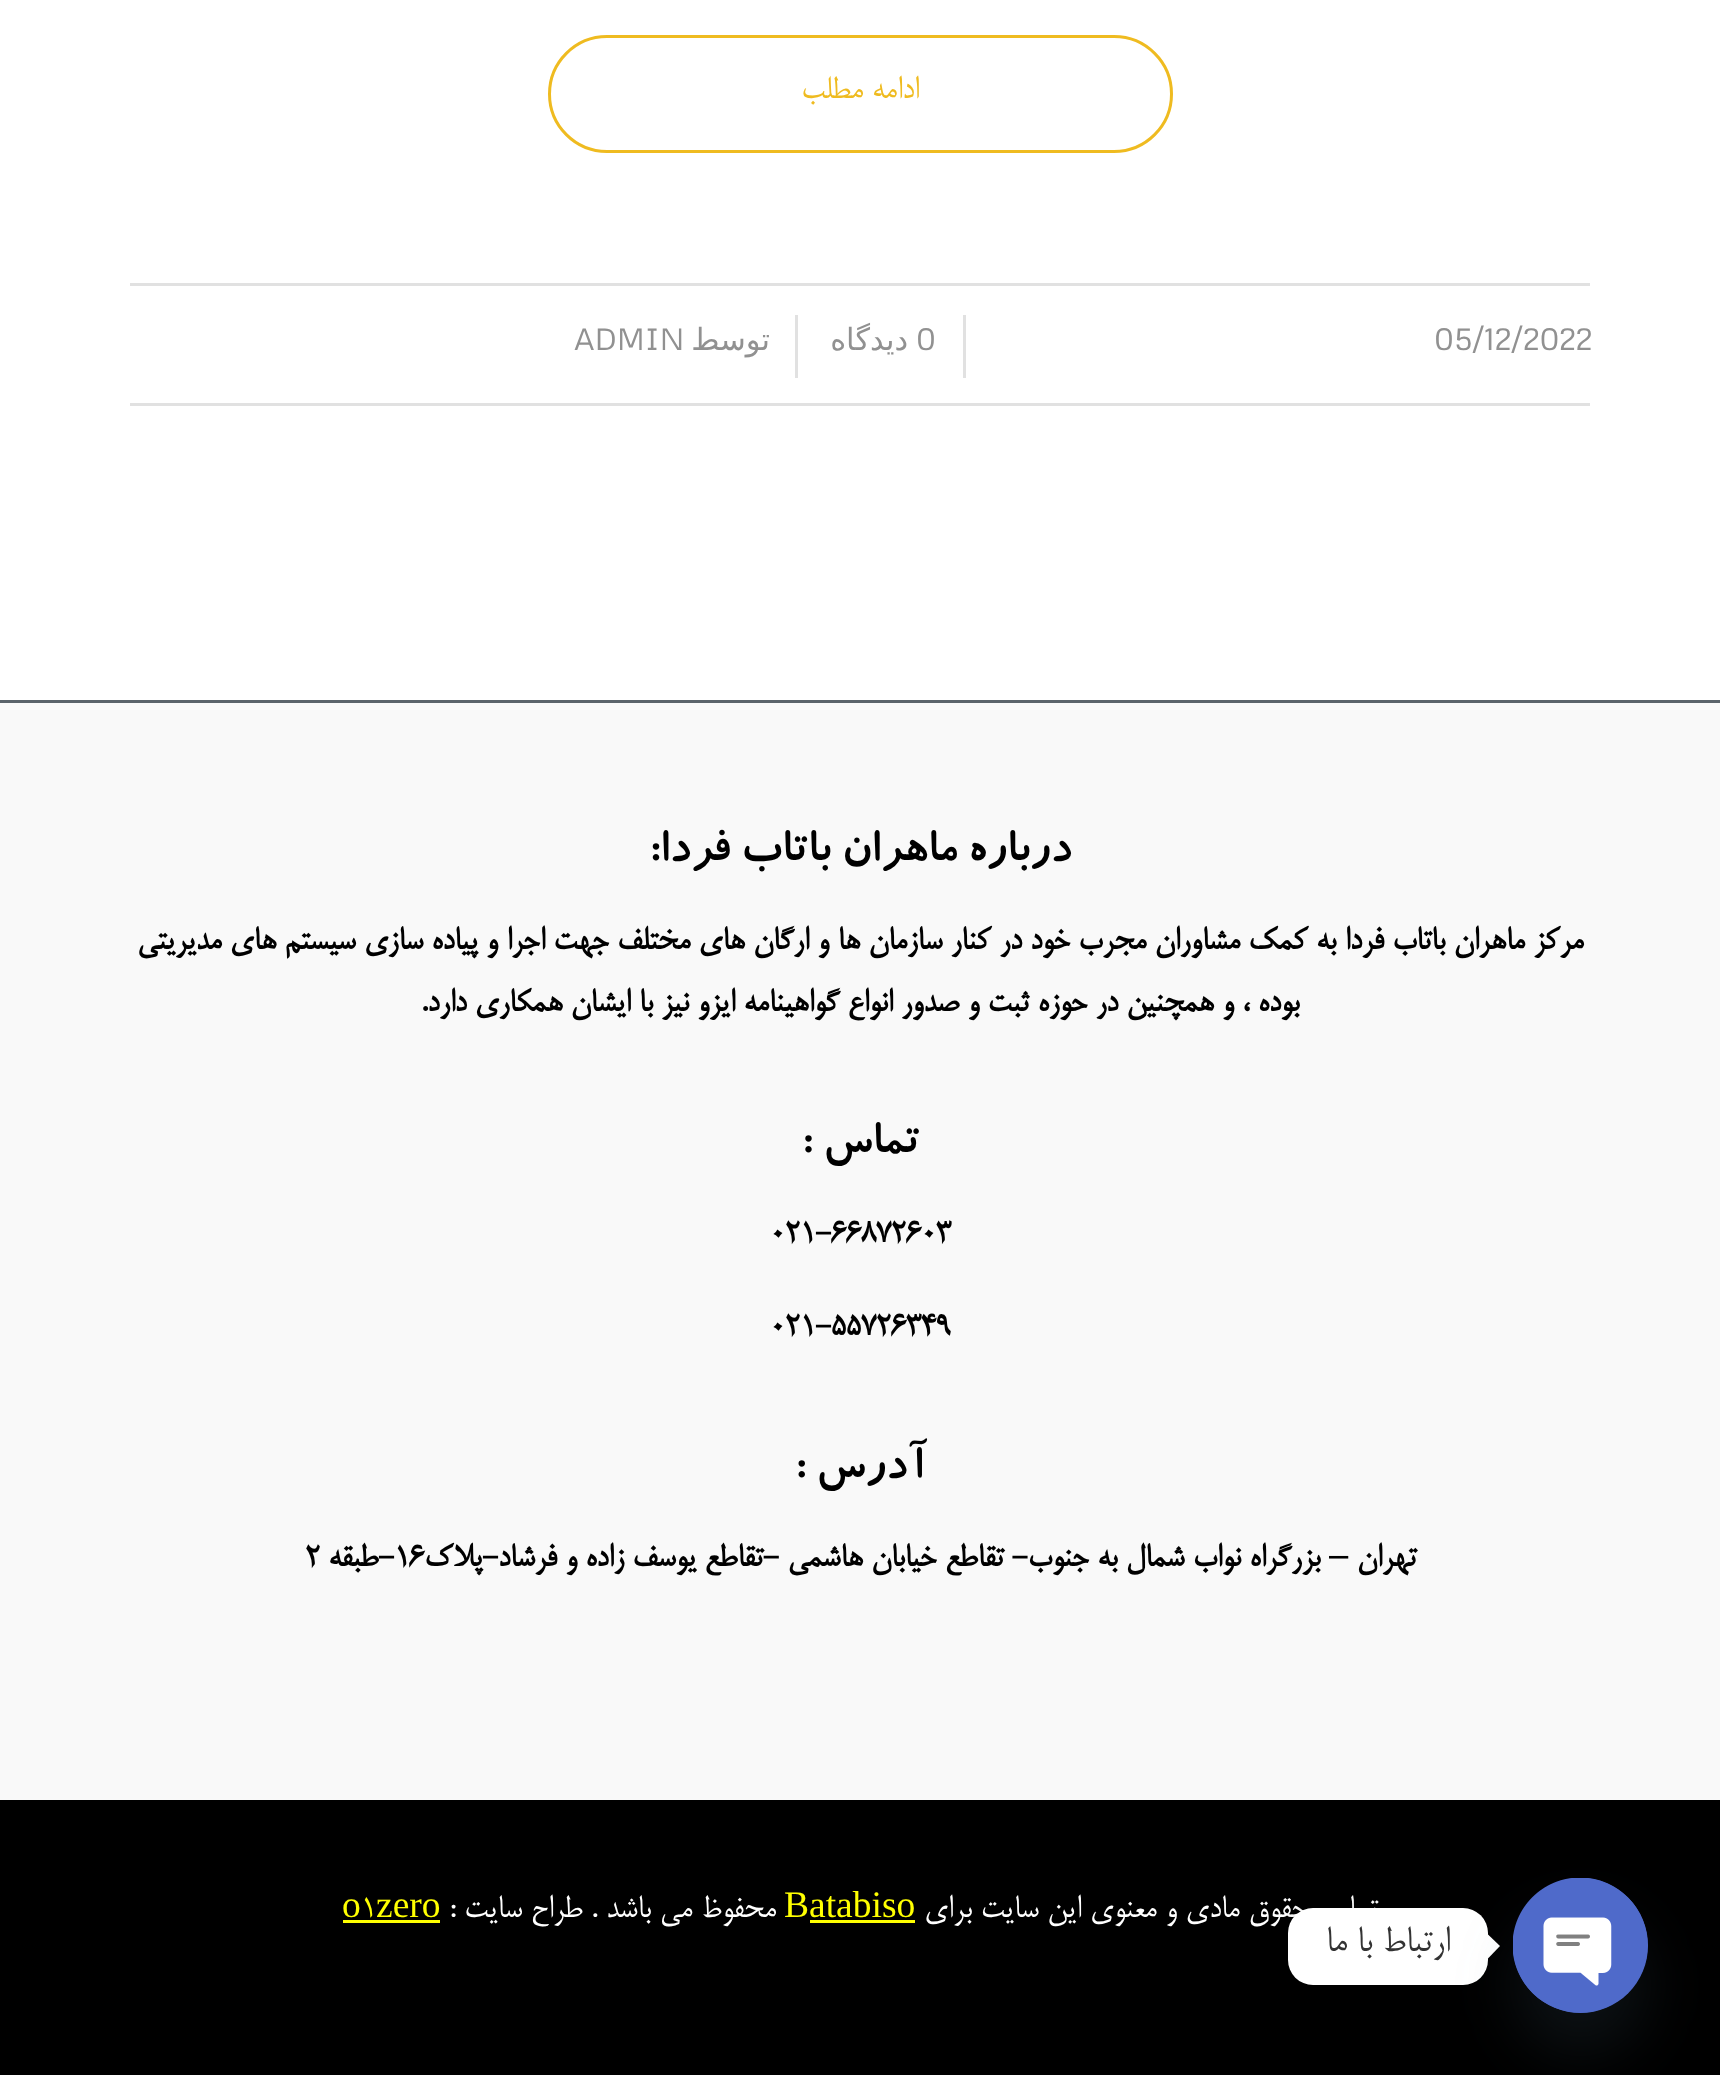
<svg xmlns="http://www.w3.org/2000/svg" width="1720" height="2075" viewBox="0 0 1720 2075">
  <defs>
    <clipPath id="clip1"><path d="M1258 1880H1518V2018H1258ZM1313 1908H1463C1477 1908 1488 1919 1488 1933V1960C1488 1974 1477 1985 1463 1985H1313C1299 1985 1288 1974 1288 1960V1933C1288 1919 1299 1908 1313 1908Z" clip-rule="evenodd"/></clipPath>
  </defs>
  <rect width="100%" height="100%" fill="rgb(255,255,255)"/>
  <rect x="549.5" y="36.5" width="622" height="115" rx="57.5" fill="none" stroke="rgb(239,187,32)" stroke-width="3"/>
  <text x="919" y="98" font-family="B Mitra" font-size="37.5" direction="rtl" fill="rgb(239,187,32)">ادامه مطلب</text>
  <rect x="130" y="283" width="1460" height="3" fill="rgb(225,225,225)"/>
  <rect x="130" y="403" width="1460" height="3" fill="rgb(225,225,225)"/>
  <text x="1434" y="350" font-family="Metrophobic" font-size="30.5" fill="rgb(145,145,145)">05/12/2022</text>
  <rect x="963" y="315" width="3" height="63" fill="rgb(225,225,225)"/>
  <text x="916" y="350" font-family="Metrophobic" font-size="30.5" fill="rgb(145,145,145)">0</text>
  <text x="908" y="350" font-family="DejaVu Sans" font-size="30.5" direction="rtl" fill="rgb(145,145,145)">دیدگاه</text>
  <rect x="795" y="315" width="3" height="63" fill="rgb(225,225,225)"/>
  <text x="770" y="350" font-family="DejaVu Sans" font-size="30.5" direction="rtl" fill="rgb(145,145,145)">توسط</text>
  <text x="574" y="350" font-family="Metrophobic" font-size="30.5" fill="rgb(145,145,145)">ADMIN</text>
  <rect x="0" y="700" width="1720" height="3" fill="rgb(91,100,107)"/>
  <rect x="0" y="703" width="1720" height="1097" fill="rgb(249,249,249)"/>
  <text x="1071" y="860" font-family="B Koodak" font-size="50" font-weight="bold" direction="rtl" fill="rgb(0,0,0)">درباره ماهران باتاب فردا:</text>
  <g font-family="B Mitra" font-size="37.5" font-weight="bold" direction="rtl" fill="rgb(0,0,0)">
    <text x="1583" y="949">مرکز ماهران باتاب فردا به کمک مشاوران مجرب خود در کنار سازمان ها و ارگان های مختلف جهت اجرا و پیاده سازی سیستم های مدیریتی</text>
    <text x="1299" y="1011">بوده ، و همچنین در حوزه ثبت و صدور انواع گواهینامه ایزو نیز با ایشان همکاری دارد.</text>
  </g>
  <text x="919" y="1152" font-family="B Koodak" font-size="50" font-weight="bold" direction="rtl" fill="rgb(0,0,0)">تماس :</text>
  <g font-family="B Mitra" font-size="37.5" font-weight="bold" fill="rgb(0,0,0)">
    <text x="770" y="1242">021-66872603</text>
    <text x="770" y="1335">021-55726349</text>
  </g>
  <text x="926" y="1477" font-family="B Koodak" font-size="50" font-weight="bold" direction="rtl" fill="rgb(0,0,0)">آدرس :</text>
  <text x="1416" y="1566" font-family="B Mitra" font-size="37.5" font-weight="bold" direction="rtl" fill="rgb(0,0,0)">تهران</text>
  <text x="1348" y="1566" font-family="Liberation Serif" font-size="37.5" font-weight="bold" direction="rtl" fill="rgb(0,0,0)">–</text>
  <text x="1320" y="1566" font-family="B Mitra" font-size="37.5" font-weight="bold" direction="rtl" fill="rgb(0,0,0)">بزرگراه نواب شمال به جنوب- تقاطع خیابان هاشمی -تقاطع یوسف زاده و فرشاد-پلاک</text>
  <text x="394" y="1566" font-family="B Mitra" font-size="37.5" font-weight="bold" fill="rgb(0,0,0)">16</text>
  <text x="394" y="1566" font-family="B Mitra" font-size="37.5" font-weight="bold" direction="rtl" fill="rgb(0,0,0)">-طبقه</text>
  <text x="305" y="1566" font-family="B Mitra" font-size="37.5" font-weight="bold" fill="rgb(0,0,0)">2</text>
  <rect x="0" y="1800" width="1720" height="275" fill="rgb(0,0,0)"/>
  <text x="1378" y="1917" font-family="B Mitra" font-size="37.5" direction="rtl" fill="rgb(255,255,255)">تمامی حقوق مادی و معنوی این سایت برای</text>
  <text x="784" y="1917" font-family="Liberation Serif" font-size="37.5" fill="rgb(255,255,0)">Batabiso</text>
  <rect x="810" y="1920" width="105" height="3" fill="rgb(255,255,0)"/>
  <text x="776" y="1917" font-family="B Mitra" font-size="37.5" direction="rtl" fill="rgb(255,255,255)">محفوظ می باشد . طراح سایت :</text>
  <text x="376" y="1917" font-family="Liberation Serif" font-size="37.5" fill="rgb(255,255,0)">zero</text>
  <text x="361" y="1917" font-family="B Mitra" font-size="37.5" fill="rgb(255,255,0)">1</text>
  <text x="342" y="1917" font-family="Liberation Serif" font-size="37.5" fill="rgb(255,255,0)">o</text>
  <rect x="343" y="1920" width="97" height="3" fill="rgb(255,255,0)"/>
  <g clip-path="url(#clip1)">
    <rect x="1288" y="1910" width="200" height="78" rx="25" fill="rgba(0,0,0,0.15)" filter="blur(9.5px)"/>
  </g>
  <rect x="1288" y="1908" width="200" height="77" rx="25" fill="rgb(255,255,255)"/>
  <path d="M1487.5 1959V1934L1500 1946Z" fill="rgb(255,255,255)"/>
  <rect x="1513" y="1918" width="135" height="135" rx="67.5" fill="rgba(73,104,126,0.16)" filter="blur(30px)"/>
  <circle cx="1580.5" cy="1945.5" r="67.5" fill="rgb(79,106,202)"/>
  <image x="1513" y="1878" width="135" height="135" href="pic1.png"/>
  <text x="1450" y="1951" font-family="B Mitra" font-size="42.5" direction="rtl" fill="rgb(51,51,51)">ارتباط با ما</text>
</svg>
